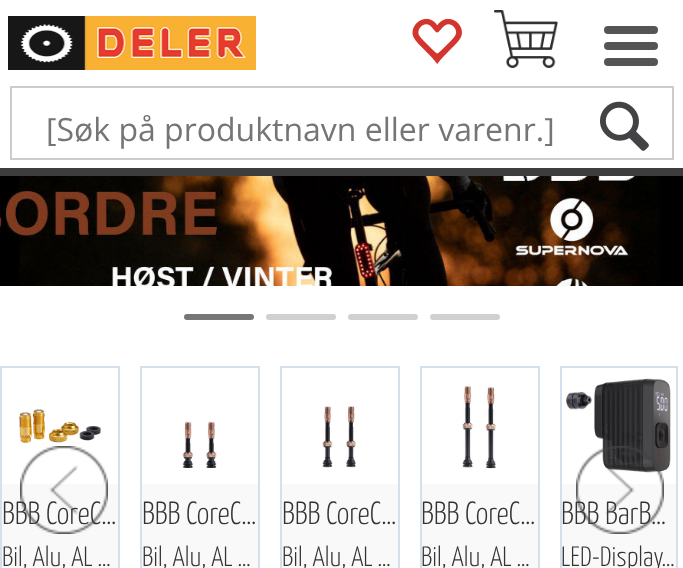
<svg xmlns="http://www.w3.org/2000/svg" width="683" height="568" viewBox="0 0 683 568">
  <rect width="100%" height="100%" fill="rgb(255,255,255)"/>
  <rect x="0" y="168" width="683" height="8" fill="rgb(61,61,61)"/>
  <image x="8" y="16" width="248" height="54" href="pic1.png"/>
  <image x="412" y="18" width="50" height="46" href="pic2.png"/>
  <image x="494" y="10" width="64" height="58" href="pic3.png"/>
  <rect x="604" y="26" width="54" height="8" rx="4" fill="rgb(85,85,85)"/>
  <rect x="604" y="42" width="54" height="8" rx="4" fill="rgb(85,85,85)"/>
  <rect x="604" y="58" width="54" height="8" rx="4" fill="rgb(85,85,85)"/>
  <rect x="11" y="87" width="662" height="72" fill="none" stroke="rgb(204,204,204)" stroke-width="2"/>
  <text x="46" y="141" font-family="Open Sans" font-size="32" fill="rgb(117,117,117)">[Søk på produktnavn eller varenr.]</text>
  <image x="600" y="101" width="49" height="50" href="pic4.png"/>
  <image x="0" y="176" width="683" height="110" href="pic5.png"/>
  <rect x="184" y="314" width="70" height="6" rx="3" fill="rgb(119,119,119)"/>
  <rect x="266" y="314" width="70" height="6" rx="3" fill="rgb(208,208,210)"/>
  <rect x="348" y="314" width="70" height="6" rx="3" fill="rgb(208,208,210)"/>
  <rect x="430" y="314" width="70" height="6" rx="3" fill="rgb(208,208,210)"/>
  <rect x="1" y="367" width="118" height="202" fill="none" stroke="rgb(212,224,236)" stroke-width="2"/>
  <rect x="2" y="484" width="116" height="84" fill="rgb(249,249,249)"/>
  <text x="2" y="524" font-family="Yanone Kaffeesatz" font-size="32" font-weight="300" fill="rgb(51,51,51)">BBB CoreC…</text>
  <image x="20" y="446" width="88" height="88" href="pic6.png"/>
  <rect x="561" y="367" width="116" height="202" fill="none" stroke="rgb(212,224,236)" stroke-width="2"/>
  <image x="565" y="378" width="106" height="95" href="pic12.png"/>
  <rect x="562" y="484" width="114" height="84" fill="rgb(249,249,249)"/>
  <text x="561" y="524" font-family="Yanone Kaffeesatz" font-size="32" font-weight="300" fill="rgb(51,51,51)">BBB BarB…</text>
  <image x="576" y="446" width="88" height="88" href="pic7.png"/>
  <image x="19" y="409" width="82" height="34" href="pic8.png"/>
  <text x="2" y="566" font-family="Yanone Kaffeesatz" font-size="28" font-weight="300" fill="rgb(51,51,51)">Bil, Alu, AL …</text>
  <rect x="141" y="367" width="118" height="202" fill="none" stroke="rgb(212,224,236)" stroke-width="2"/>
  <image x="182" y="420" width="35" height="48" href="pic9.png"/>
  <rect x="142" y="484" width="116" height="84" fill="rgb(249,249,249)"/>
  <text x="142" y="524" font-family="Yanone Kaffeesatz" font-size="32" font-weight="300" fill="rgb(51,51,51)">BBB CoreC…</text>
  <text x="142" y="566" font-family="Yanone Kaffeesatz" font-size="28" font-weight="300" fill="rgb(51,51,51)">Bil, Alu, AL …</text>
  <rect x="281" y="367" width="118" height="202" fill="none" stroke="rgb(212,224,236)" stroke-width="2"/>
  <image x="322" y="406" width="34" height="62" href="pic10.png"/>
  <rect x="282" y="484" width="116" height="84" fill="rgb(249,249,249)"/>
  <text x="282" y="524" font-family="Yanone Kaffeesatz" font-size="32" font-weight="300" fill="rgb(51,51,51)">BBB CoreC…</text>
  <text x="282" y="566" font-family="Yanone Kaffeesatz" font-size="28" font-weight="300" fill="rgb(51,51,51)">Bil, Alu, AL …</text>
  <rect x="421" y="367" width="118" height="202" fill="none" stroke="rgb(212,224,236)" stroke-width="2"/>
  <image x="462" y="385" width="34" height="84" href="pic11.png"/>
  <rect x="422" y="484" width="116" height="84" fill="rgb(249,249,249)"/>
  <text x="421" y="524" font-family="Yanone Kaffeesatz" font-size="32" font-weight="300" fill="rgb(51,51,51)">BBB CoreC…</text>
  <g font-family="Yanone Kaffeesatz" font-size="28" font-weight="300" fill="rgb(51,51,51)">
    <text x="421" y="566">Bil, Alu, AL …</text>
    <text x="561" y="566">LED-Display…</text>
  </g>
</svg>
